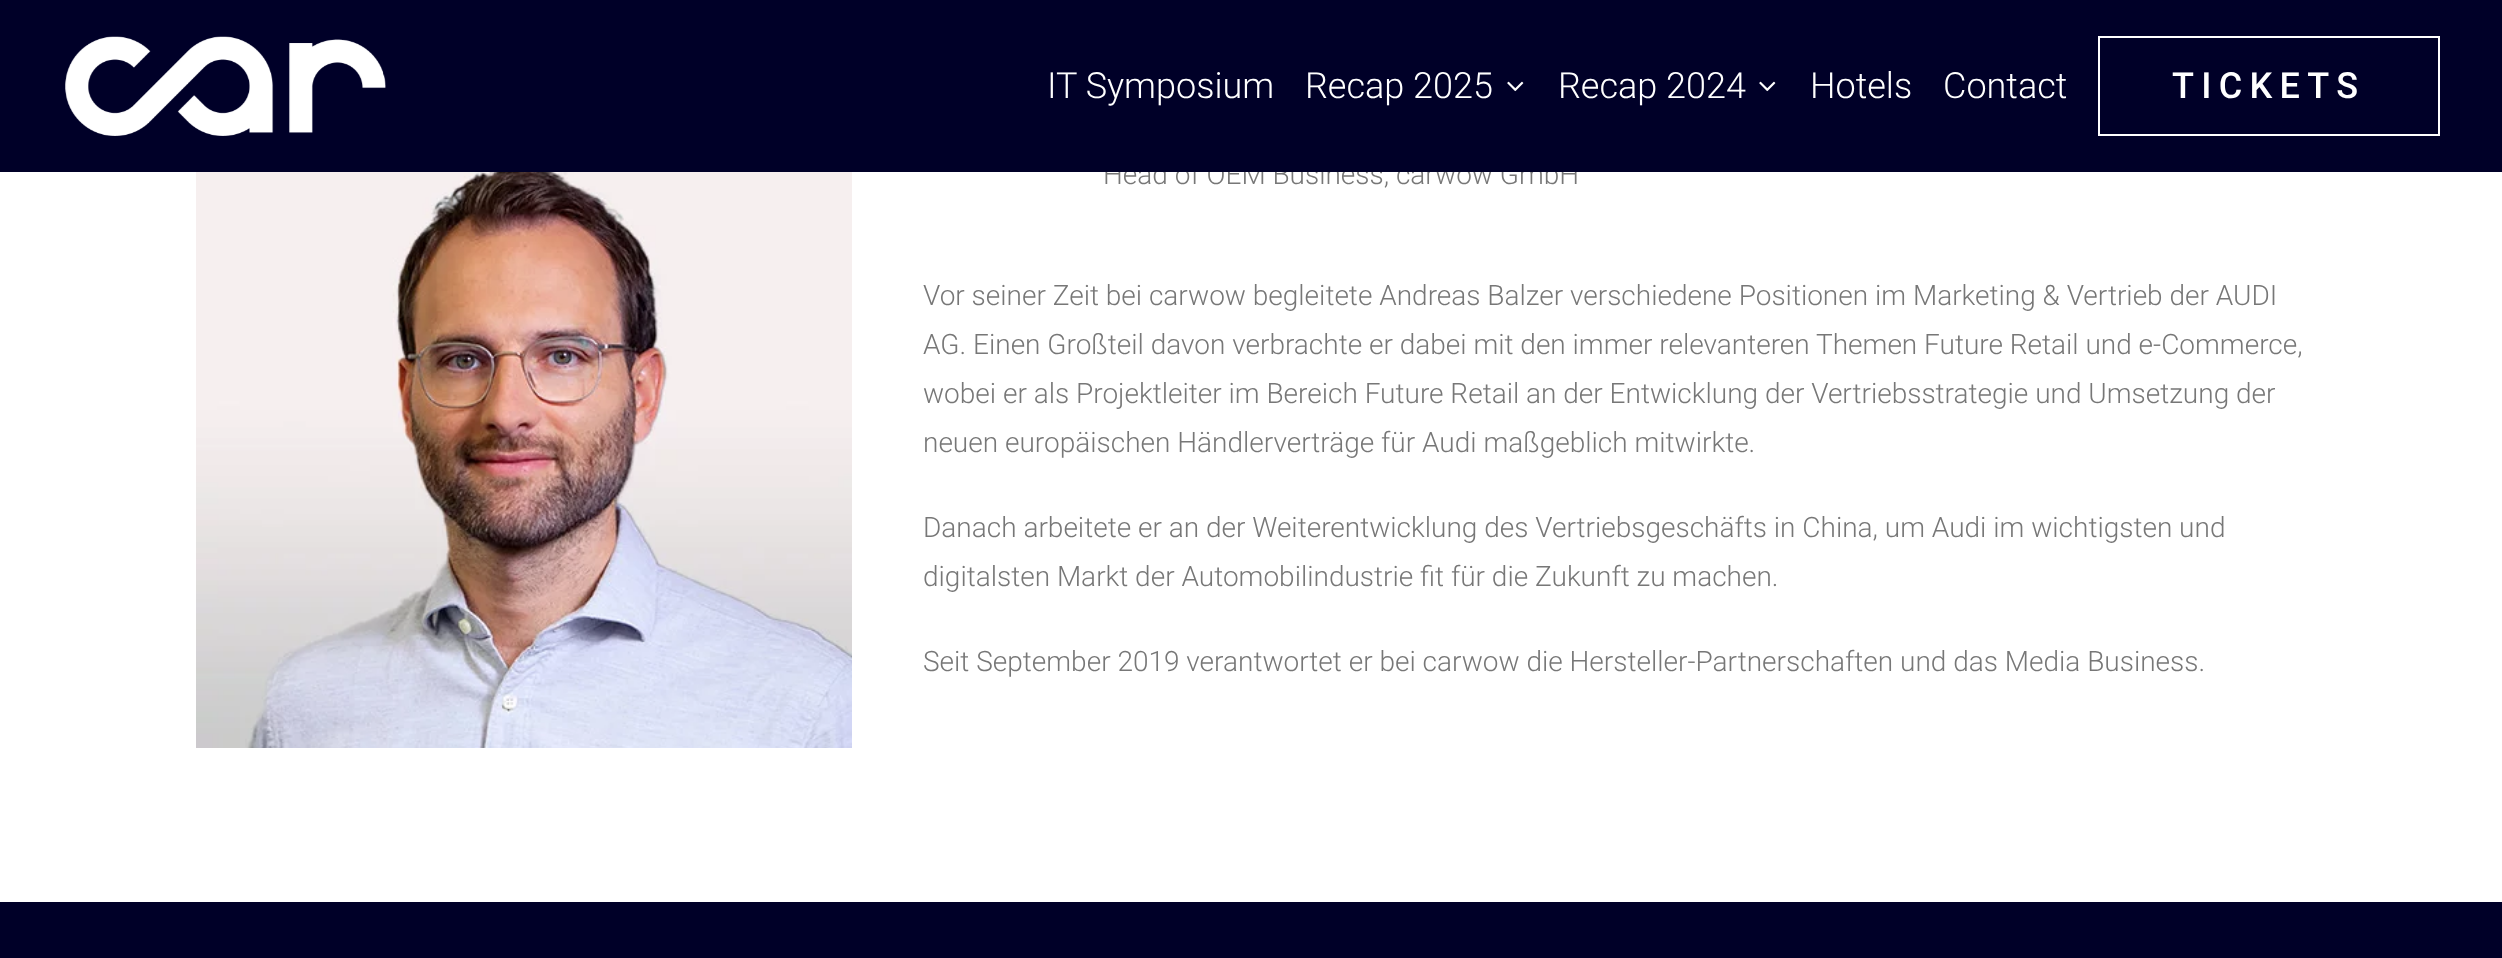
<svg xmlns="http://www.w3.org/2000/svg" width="2502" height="958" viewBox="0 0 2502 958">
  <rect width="100%" height="100%" fill="rgb(0,0,40)"/>
  <rect x="0" y="172" width="2502" height="730" fill="rgb(255,255,255)"/>
  <text x="1103" y="184" font-family="Roboto" font-size="28" font-weight="300" fill="rgb(119,119,119)">Head of OEM Business, carwow GmbH</text>
  <rect x="1105" y="162" width="472" height="10" fill="rgb(0,0,40)"/>
  <image x="65" y="36" width="321" height="100" href="pic1.png"/>
  <g font-family="Roboto" font-size="36" font-weight="300" fill="rgb(255,255,255)">
    <text x="1047" y="98">IT Symposium</text>
    <text x="1305" y="98">Recap 2025</text>
  </g>
  <image x="1507" y="81" width="17" height="11" href="pic2.png"/>
  <text x="1558" y="98" font-family="Roboto" font-size="36" font-weight="300" fill="rgb(255,255,255)">Recap 2024</text>
  <image x="1759" y="81" width="17" height="11" href="pic2.png"/>
  <g font-family="Roboto" font-size="36" font-weight="300" fill="rgb(255,255,255)">
    <text x="1810" y="98">Hotels</text>
    <text x="1943" y="98">Contact</text>
  </g>
  <rect x="2099" y="37" width="340" height="98" fill="none" stroke="rgb(255,255,255)" stroke-width="2"/>
  <text x="2172" y="98" font-family="Roboto" font-size="36" font-weight="500" letter-spacing="7.25" fill="rgb(255,255,255)">TICKETS</text>
  <image x="196" y="172" width="656" height="576" href="pic3.png"/>
  <g font-family="Roboto" font-size="28" font-weight="300" fill="rgb(119,119,119)">
    <text>
      <tspan x="923" y="305">Vor seiner Zeit bei carwow begleitete Andreas Balzer verschiedene Positionen im Marketing &amp; Vertrieb der AUDI</tspan>
      <tspan x="923" y="354">AG. Einen Großteil davon verbrachte er dabei mit den immer relevanteren Themen Future Retail und e-Commerce,</tspan>
      <tspan x="923" y="403">wobei er als Projektleiter im Bereich Future Retail an der Entwicklung der Vertriebsstrategie und Umsetzung der</tspan>
      <tspan x="923" y="452">neuen europäischen Händlerverträge für Audi maßgeblich mitwirkte.</tspan>
    </text>
    <text>
      <tspan x="923" y="537">Danach arbeitete er an der Weiterentwicklung des Vertriebsgeschäfts in China, um Audi im wichtigsten und</tspan>
      <tspan x="923" y="586">digitalsten Markt der Automobilindustrie fit für die Zukunft zu machen.</tspan>
    </text>
    <text x="923" y="671">Seit September 2019 verantwortet er bei carwow die Hersteller-Partnerschaften und das Media Business.</text>
  </g>
</svg>
